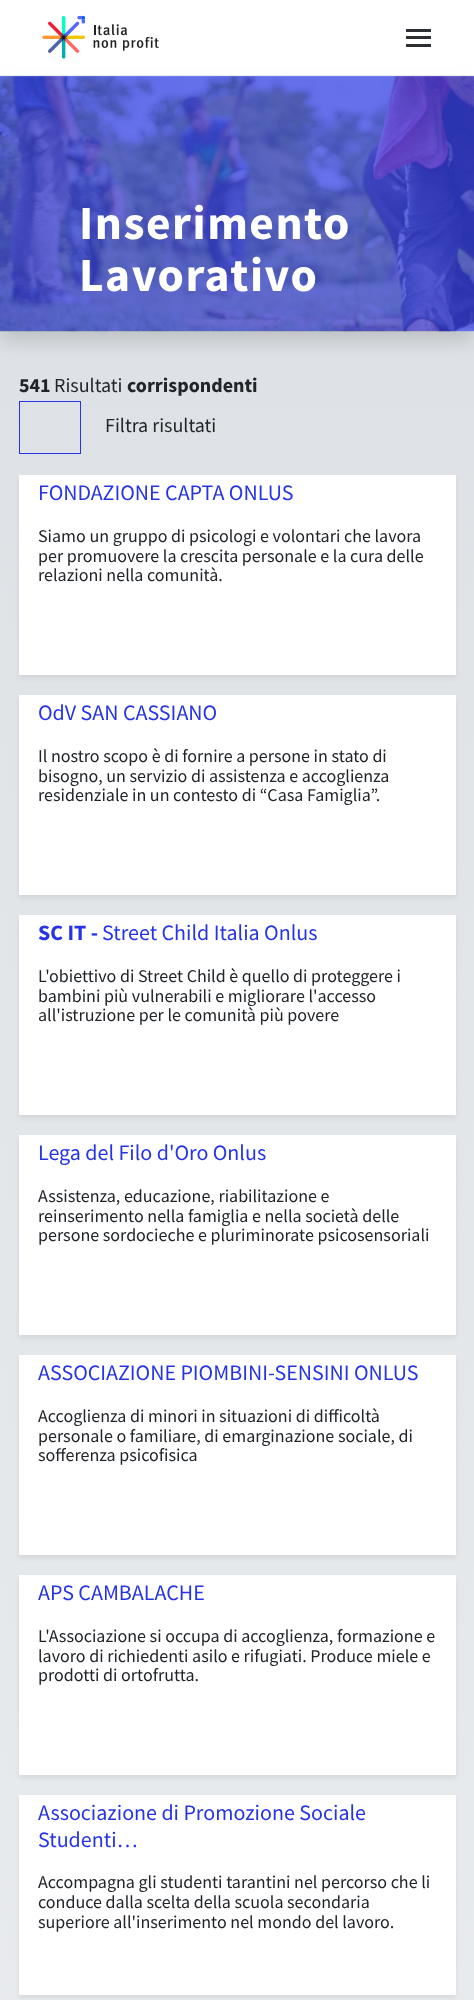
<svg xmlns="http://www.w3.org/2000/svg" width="474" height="2000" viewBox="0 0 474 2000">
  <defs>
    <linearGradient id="g1" gradientUnits="userSpaceOnUse" x1="237" y1="331" x2="238" y2="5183"><stop offset="0" stop-color="rgb(222,226,230)"/><stop offset="1" stop-color="rgb(251,251,251)"/></linearGradient>
  </defs>
  <rect width="100%" height="100%" fill="rgb(255,255,255)"/>
  <rect x="0" y="331" width="474" height="1669" fill="url(#g1)"/>
  <rect x="0" y="86" width="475" height="255" fill="rgba(0,0,0,0.15)" filter="blur(10px)"/>
  <rect x="1" y="71" width="473" height="4" fill="rgb(255,255,255)"/>
  <rect x="0" y="75" width="474" height="1" fill="rgb(233,236,239)"/>
  <image x="42" y="15" width="117" height="44" href="pic1.png"/>
  <rect x="406" y="44" width="25" height="3" fill="rgb(44,48,52)"/>
  <rect x="406" y="29" width="25" height="3" fill="rgb(44,48,52)"/>
  <rect x="406" y="36" width="25" height="3" fill="rgb(44,48,52)"/>
  <image x="0" y="76" width="474" height="256" href="pic2.png"/>
  <rect x="0" y="76" width="474" height="255" fill="rgba(64,76,232,0.51)"/>
  <g font-family="Source Sans Pro" font-size="47.5" font-weight="bold" letter-spacing="1.5" fill="rgb(255,255,255)">
    <text>
      <tspan x="79" y="239">Inserimento</tspan>
      <tspan x="79" y="291">Lavorativo</tspan>
    </text>
  </g>
  <text x="19" y="392" font-family="Source Sans Pro" font-size="20" font-weight="bold" fill="rgb(33,37,41)">541</text>
  <text x="54" y="392" font-family="Source Sans Pro" font-size="20" fill="rgb(33,37,41)">Risultati</text>
  <text x="127" y="392" font-family="Source Sans Pro" font-size="20" font-weight="bold" fill="rgb(33,37,41)">corrispondenti</text>
  <rect x="19.5" y="401.5" width="61" height="52" fill="none" stroke="rgb(38,52,229)"/>
  <text x="105" y="432" font-family="Source Sans Pro" font-size="20" fill="rgb(33,37,41)">Filtra risultati</text>
  <rect x="19" y="478" width="437" height="200" fill="rgba(0,0,0,0.07)" filter="blur(2.5px)"/>
  <rect x="19" y="475" width="437" height="200" fill="rgb(255,255,255)"/>
  <text x="38" y="500" font-family="Source Sans Pro" font-size="22" fill="rgb(38,52,229)">FONDAZIONE CAPTA ONLUS</text>
  <g font-family="Source Sans Pro" font-size="18" fill="rgb(33,37,41)">
    <text>
      <tspan x="38" y="542">Siamo un gruppo di psicologi e volontari che lavora</tspan>
      <tspan x="38" y="562">per promuovere la crescita personale e la cura delle</tspan>
      <tspan x="38" y="581">relazioni nella comunità.</tspan>
    </text>
  </g>
  <rect x="19" y="698" width="437" height="200" fill="rgba(0,0,0,0.07)" filter="blur(2.5px)"/>
  <rect x="19" y="695" width="437" height="200" fill="rgb(255,255,255)"/>
  <text x="38" y="720" font-family="Source Sans Pro" font-size="22" fill="rgb(38,52,229)">OdV SAN CASSIANO</text>
  <g font-family="Source Sans Pro" font-size="18" fill="rgb(33,37,41)">
    <text>
      <tspan x="38" y="762">Il nostro scopo è di fornire a persone in stato di</tspan>
      <tspan x="38" y="782">bisogno, un servizio di assistenza e accoglienza</tspan>
      <tspan x="38" y="801">residenziale in un contesto di “Casa Famiglia”.</tspan>
    </text>
  </g>
  <rect x="19" y="918" width="437" height="200" fill="rgba(0,0,0,0.07)" filter="blur(2.5px)"/>
  <rect x="19" y="915" width="437" height="200" fill="rgb(255,255,255)"/>
  <text x="38" y="940" font-family="Source Sans Pro" font-size="22" font-weight="bold" fill="rgb(38,52,229)">SC IT -</text>
  <text x="102" y="940" font-family="Source Sans Pro" font-size="22" fill="rgb(38,52,229)">Street Child Italia Onlus</text>
  <g font-family="Source Sans Pro" font-size="18" fill="rgb(33,37,41)">
    <text>
      <tspan x="38" y="982">L'obiettivo di Street Child è quello di proteggere i</tspan>
      <tspan x="38" y="1002">bambini più vulnerabili e migliorare l'accesso</tspan>
      <tspan x="38" y="1021">all'istruzione per le comunità più povere</tspan>
    </text>
  </g>
  <rect x="19" y="1138" width="437" height="200" fill="rgba(0,0,0,0.07)" filter="blur(2.5px)"/>
  <rect x="19" y="1135" width="437" height="200" fill="rgb(255,255,255)"/>
  <text x="38" y="1160" font-family="Source Sans Pro" font-size="22" fill="rgb(38,52,229)">Lega del Filo d'Oro Onlus</text>
  <g font-family="Source Sans Pro" font-size="18" fill="rgb(33,37,41)">
    <text>
      <tspan x="38" y="1202">Assistenza, educazione, riabilitazione e</tspan>
      <tspan x="38" y="1222">reinserimento nella famiglia e nella società delle</tspan>
      <tspan x="38" y="1241">persone sordocieche e pluriminorate psicosensoriali</tspan>
    </text>
  </g>
  <rect x="19" y="1358" width="437" height="200" fill="rgba(0,0,0,0.07)" filter="blur(2.5px)"/>
  <rect x="19" y="1355" width="437" height="200" fill="rgb(255,255,255)"/>
  <text x="38" y="1380" font-family="Source Sans Pro" font-size="22" fill="rgb(38,52,229)">ASSOCIAZIONE PIOMBINI-SENSINI ONLUS</text>
  <g font-family="Source Sans Pro" font-size="18" fill="rgb(33,37,41)">
    <text>
      <tspan x="38" y="1422">Accoglienza di minori in situazioni di difficoltà</tspan>
      <tspan x="38" y="1442">personale o familiare, di emarginazione sociale, di</tspan>
      <tspan x="38" y="1461">sofferenza psicofisica</tspan>
    </text>
  </g>
  <rect x="19" y="1578" width="437" height="200" fill="rgba(0,0,0,0.07)" filter="blur(2.5px)"/>
  <rect x="19" y="1575" width="437" height="200" fill="rgb(255,255,255)"/>
  <text x="38" y="1600" font-family="Source Sans Pro" font-size="22" fill="rgb(38,52,229)">APS CAMBALACHE</text>
  <g font-family="Source Sans Pro" font-size="18" fill="rgb(33,37,41)">
    <text>
      <tspan x="38" y="1642">L'Associazione si occupa di accoglienza, formazione e</tspan>
      <tspan x="38" y="1662">lavoro di richiedenti asilo e rifugiati. Produce miele e</tspan>
      <tspan x="38" y="1681">prodotti di ortofrutta.</tspan>
    </text>
  </g>
  <rect x="19" y="1798" width="437" height="200" fill="rgba(0,0,0,0.07)" filter="blur(2.5px)"/>
  <rect x="19" y="1795" width="437" height="200" fill="rgb(255,255,255)"/>
  <g font-family="Source Sans Pro" font-size="22" fill="rgb(38,52,229)">
    <text>
      <tspan x="38" y="1820">Associazione di Promozione Sociale</tspan>
      <tspan x="38" y="1847">Studenti…</tspan>
    </text>
  </g>
  <g font-family="Source Sans Pro" font-size="18" fill="rgb(33,37,41)">
    <text>
      <tspan x="38" y="1888">Accompagna gli studenti tarantini nel percorso che li</tspan>
      <tspan x="38" y="1908">conduce dalla scelta della scuola secondaria</tspan>
      <tspan x="38" y="1928">superiore all'inserimento nel mondo del lavoro.</tspan>
    </text>
  </g>
</svg>
